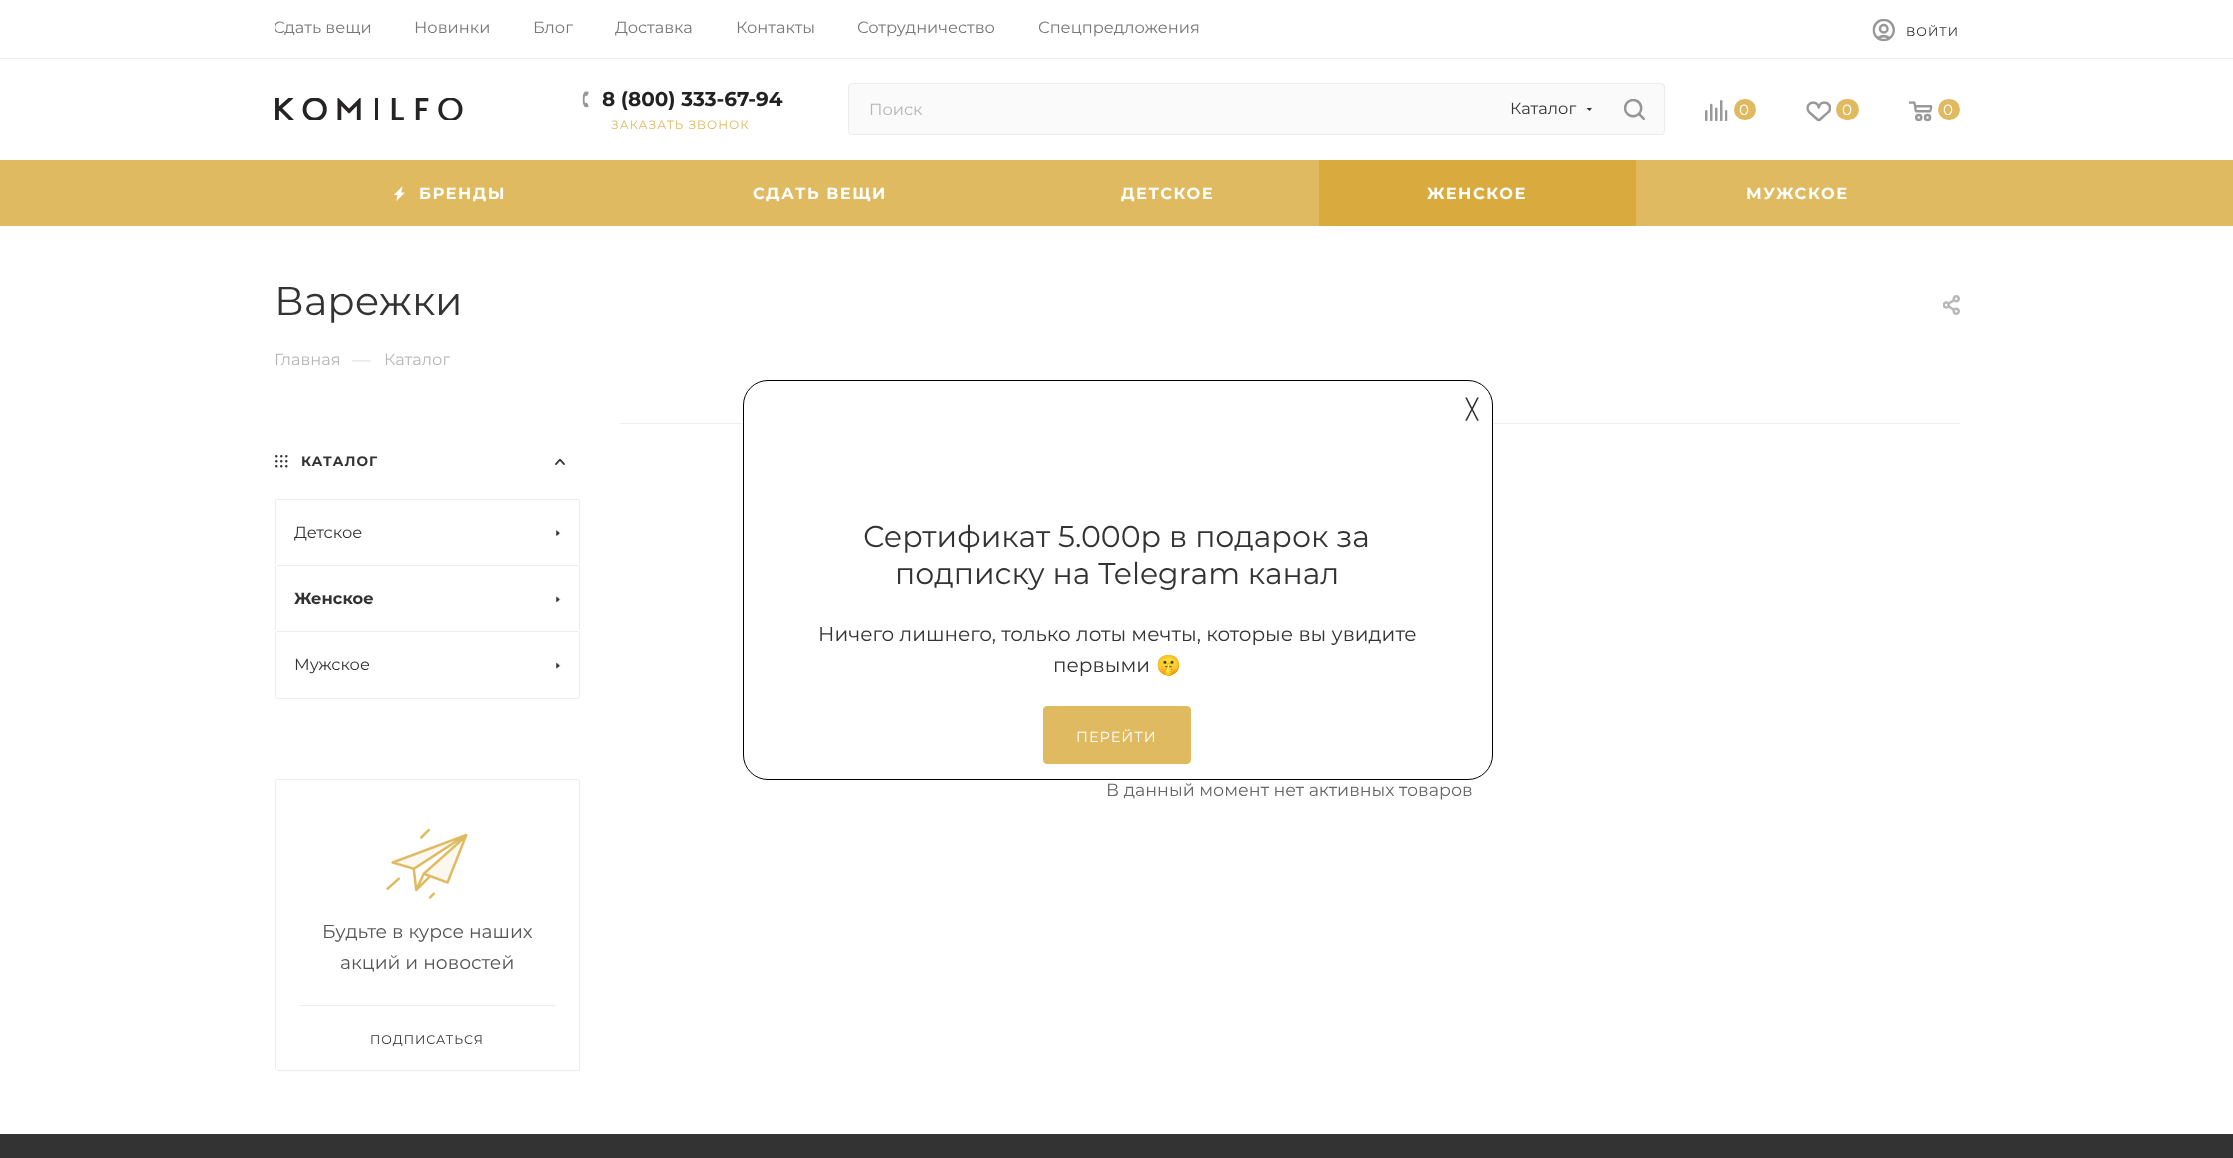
<svg xmlns="http://www.w3.org/2000/svg" width="2233" height="1158" viewBox="0 0 2233 1158">
  <defs>
    <clipPath id="clip1"><rect x="275" y="0" width="925" height="56"/></clipPath>
    <clipPath id="clip2"><rect x="1586" y="108" width="7" height="4"/></clipPath>
  </defs>
  <rect width="100%" height="100%" fill="rgb(255,255,255)"/>
  <rect x="0" y="58" width="2233" height="1" fill="rgb(236,236,236)"/>
  <g clip-path="url(#clip1)">
    <text x="273" y="33" font-family="Montserrat" font-size="16.25" fill="rgb(119,119,119)">Сдать вещи</text>
  </g>
  <g font-family="Montserrat" font-size="16.25" fill="rgb(119,119,119)">
    <text x="414" y="33">Новинки</text>
    <text x="533" y="33">Блог</text>
    <text x="615" y="33">Доставка</text>
    <text x="736" y="33">Контакты</text>
    <text x="857" y="33">Сотрудничество</text>
    <text x="1038" y="33">Спецпредложения</text>
  </g>
  <image x="1872" y="18" width="23" height="24" href="pic1.png"/>
  <text x="1906" y="36" font-family="Montserrat" font-size="12.5" letter-spacing="1" fill="rgb(51,51,51)">ВОЙТИ</text>
  <image x="275" y="98" width="188" height="22" href="pic2.png"/>
  <image x="582" y="91" width="7" height="17" href="pic3.png"/>
  <text x="602" y="106" font-family="Montserrat" font-size="20" font-weight="bold" fill="rgb(34,34,34)">8 (800) 333-67-94</text>
  <text x="611" y="129" font-family="Montserrat" font-size="12" letter-spacing="1" fill="rgb(224,186,96)">ЗАКАЗАТЬ ЗВОНОК</text>
  <rect x="848.5" y="83.5" width="816" height="51" rx="3.5" fill="rgb(250,250,250)" stroke="rgb(236,236,236)"/>
  <text x="869" y="115" font-family="Montserrat" font-size="16.25" fill="rgb(182,181,181)">Поиск</text>
  <text x="1510" y="114" font-family="Montserrat" font-size="16.25" fill="rgb(51,51,51)">Каталог</text>
  <g clip-path="url(#clip2)">
    <path d="M1586 107.5H1592.5L1589.5 111Z" fill="rgb(51,51,51)" fill-rule="evenodd"/>
  </g>
  <image x="1624" y="99" width="21" height="21" href="pic4.png"/>
  <image x="1705" y="100" width="23" height="21" href="pic5.png"/>
  <rect x="1734" y="99" width="22" height="21" rx="10.5" fill="rgb(224,186,96)"/>
  <text x="1739" y="115" font-family="Montserrat" font-size="15" fill="rgb(255,255,255)">0</text>
  <image x="1806" y="101" width="26" height="21" href="pic6.png"/>
  <rect x="1836" y="99" width="23" height="21" rx="10.5" fill="rgb(224,186,96)"/>
  <text x="1842" y="115" font-family="Montserrat" font-size="15" fill="rgb(255,255,255)">0</text>
  <image x="1908" y="101" width="25" height="21" href="pic7.png"/>
  <rect x="1938" y="99" width="22" height="21" rx="10.5" fill="rgb(224,186,96)"/>
  <text x="1943" y="115" font-family="Montserrat" font-size="15" fill="rgb(255,255,255)">0</text>
  <rect x="0" y="160" width="2233" height="66" fill="rgb(224,186,96)"/>
  <image x="394" y="186" width="11" height="15" href="pic8.png"/>
  <g font-family="Montserrat" font-size="16.25" font-weight="bold" letter-spacing="1.5" fill="rgb(255,255,255)">
    <text x="419" y="199">БРЕНДЫ</text>
    <text x="753" y="199">СДАТЬ ВЕЩИ</text>
    <text x="1121" y="199">ДЕТСКОЕ</text>
  </g>
  <rect x="1319" y="160" width="317" height="66" fill="rgb(217,171,62)"/>
  <g font-family="Montserrat" font-size="16.25" font-weight="bold" letter-spacing="1.5" fill="rgb(255,255,255)">
    <text x="1427" y="199">ЖЕНСКОЕ</text>
    <text x="1746" y="199">МУЖСКОЕ</text>
  </g>
  <text x="274" y="315" font-family="Montserrat" font-size="40" fill="rgb(51,51,51)">Варежки</text>
  <image x="1943" y="295" width="17" height="20" href="pic9.png"/>
  <text x="274" y="365" font-family="Montserrat" font-size="16.25" fill="rgb(182,181,181)">Главная</text>
  <text x="352" y="366" font-family="Montserrat" font-size="18.75" fill="rgb(221,221,221)">—</text>
  <text x="384" y="365" font-family="Montserrat" font-size="16.25" fill="rgb(182,181,181)">Каталог</text>
  <image x="275" y="455" width="13" height="13" href="pic10.png"/>
  <text x="301" y="466" font-family="Montserrat" font-size="13.75" font-weight="bold" letter-spacing="1" fill="rgb(51,51,51)">КАТАЛОГ</text>
  <image x="555" y="459" width="10" height="6" href="pic11.png"/>
  <rect x="276" y="499" width="303" height="1" fill="rgb(236,236,236)"/>
  <rect x="579" y="500" width="1" height="64" fill="rgb(236,236,236)"/>
  <rect x="275" y="500" width="1" height="64" fill="rgb(236,236,236)"/>
  <text x="294" y="538" font-family="Montserrat" font-size="16.25" fill="rgb(51,51,51)">Детское</text>
  <image x="556" y="530" width="5" height="6" href="pic12.png"/>
  <rect x="276" y="565" width="303" height="1" fill="rgb(236,236,236)"/>
  <rect x="579" y="566" width="1" height="64" fill="rgb(236,236,236)"/>
  <rect x="275" y="566" width="1" height="64" fill="rgb(236,236,236)"/>
  <text x="294" y="604" font-family="Montserrat" font-size="16.25" font-weight="bold" fill="rgb(51,51,51)">Женское</text>
  <image x="556" y="596" width="5" height="7" href="pic13.png"/>
  <rect x="275.5" y="631.5" width="304" height="67" rx="2" fill="none" stroke="rgb(236,236,236)"/>
  <text x="294" y="670" font-family="Montserrat" font-size="16.25" fill="rgb(51,51,51)">Мужское</text>
  <image x="556" y="662" width="5" height="7" href="pic14.png"/>
  <rect x="275.5" y="779.5" width="304" height="291" rx="2" fill="none" stroke="rgb(236,236,236)"/>
  <image x="386" y="829" width="82" height="70" href="pic15.png"/>
  <g font-family="Montserrat" font-size="18.75" fill="rgb(85,85,85)">
    <text x="322" y="938">Будьте в курсе наших</text>
    <text x="340" y="969">акций и новостей</text>
  </g>
  <rect x="300" y="1005" width="255" height="1" fill="rgb(236,236,236)"/>
  <text x="370" y="1044" font-family="Montserrat" font-size="12.5" letter-spacing="1" fill="rgb(51,51,51)">ПОДПИСАТЬСЯ</text>
  <rect x="620" y="423" width="1340" height="1" fill="rgb(238,238,238)"/>
  <text x="1106" y="796" font-family="Montserrat" font-size="17.5" fill="rgb(102,102,102)">В данный момент нет активных товаров</text>
  <rect x="743.5" y="380.5" width="749" height="399" rx="24.5" fill="rgb(255,255,255)" stroke="rgb(0,0,0)"/>
  <text x="1466" y="416" font-family="DejaVu Sans" font-size="20" fill="rgb(51,51,51)">╳</text>
  <g font-family="Montserrat" font-size="30" fill="rgb(51,51,51)">
    <text x="863" y="547">Сертификат 5.000р в подарок за</text>
    <text x="895" y="584">подписку на Telegram канал</text>
  </g>
  <g font-family="Montserrat" font-size="20" fill="rgb(51,51,51)">
    <text x="818" y="641">Ничего лишнего, только лоты мечты, которые вы увидите</text>
    <text x="1053" y="672">первыми</text>
  </g>
  <text x="1156" y="672" font-family="Noto Color Emoji" font-size="20" fill="rgb(51,51,51)">🤫</text>
  <rect x="1043.5" y="706.5" width="147" height="57" rx="3.5" fill="rgb(224,186,96)" stroke="rgb(224,186,96)"/>
  <text x="1076" y="742" font-family="Montserrat" font-size="14.5" letter-spacing="1" fill="rgb(255,255,255)">ПЕРЕЙТИ</text>
  <rect x="0" y="1134" width="2233" height="24" fill="rgb(51,51,51)"/>
</svg>
